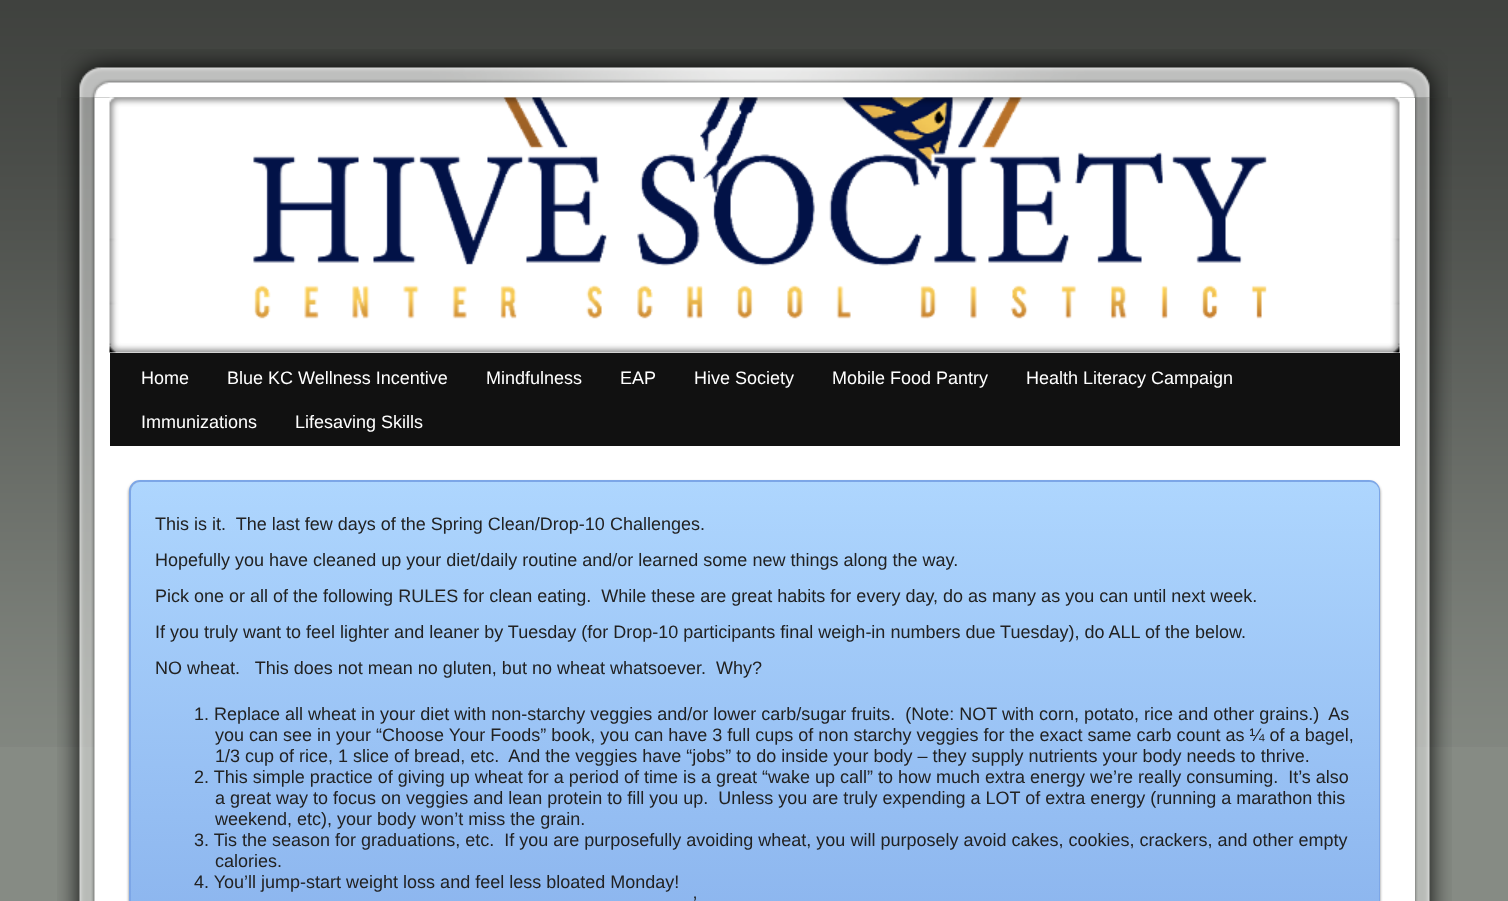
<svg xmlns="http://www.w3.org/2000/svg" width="1508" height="901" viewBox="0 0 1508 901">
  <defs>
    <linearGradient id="g1" gradientUnits="userSpaceOnUse" x1="755" y1="481" x2="755" y2="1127"><stop offset="0" stop-color="rgb(174,214,254)"/><stop offset="1" stop-color="rgb(124,166,231)"/></linearGradient>
  </defs>
  <rect width="100%" height="100%" fill="rgb(134,139,132)"/>
  <image x="0" y="0" width="1508" height="747" href="pic1.png"/>
  <image x="61" y="49" width="1387" height="49" href="pic2.png"/>
  <image x="57" y="97" width="1395" height="804" href="pic3.png"/>
  <rect x="1414" y="98" width="1" height="803" fill="rgb(255,255,255)"/>
  <image x="253" y="97" width="1014" height="222" href="pic4.png"/>
  <image x="109" y="97" width="1291" height="256" href="pic5.png"/>
  <rect x="110" y="353" width="1290" height="93" fill="rgb(17,17,17)"/>
  <g font-family="Liberation Sans" font-size="18" fill="rgb(255,255,255)">
    <text x="141" y="384">Home</text>
    <text x="227" y="384">Blue KC Wellness Incentive</text>
    <text x="486" y="384">Mindfulness</text>
    <text x="620" y="384">EAP</text>
    <text x="694" y="384">Hive Society</text>
    <text x="832" y="384">Mobile Food Pantry</text>
    <text x="1026" y="384">Health Literacy Campaign</text>
    <text x="141" y="428">Immunizations</text>
    <text x="295" y="428">Lifesaving Skills</text>
  </g>
  <rect x="129" y="482" width="1251" height="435" rx="11" fill="rgba(0,0,0,0.5)" filter="blur(1.5px)"/>
  <rect x="130" y="481" width="1249" height="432" rx="10" fill="none" stroke="rgb(124,166,231)" stroke-width="2"/>
  <rect x="131" y="482" width="1248" height="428" rx="9" fill="url(#g1)"/>
  <g font-family="Liberation Sans" font-size="18" fill="rgb(34,34,34)">
    <text x="155" y="530" xml:space="preserve">This is it.  The last few days of the Spring Clean/Drop-10 Challenges.</text>
    <text x="155" y="566">Hopefully you have cleaned up your diet/daily routine and/or learned some new things along the way.</text>
    <text x="155" y="602" xml:space="preserve">Pick one or all of the following RULES for clean eating.  While these are great habits for every day, do as many as you can until next week.</text>
    <text x="155" y="638">If you truly want to feel lighter and leaner by Tuesday (for Drop-10 participants final weigh-in numbers due Tuesday), do ALL of the below.</text>
    <text x="155" y="674" xml:space="preserve">NO wheat.   This does not mean no gluten, but no wheat whatsoever.  Why?</text>
    <text x="194" y="720" xml:space="preserve">1. Replace all wheat in your diet with non-starchy veggies and/or lower carb/sugar fruits.  (Note: NOT with corn, potato, rice and other grains.)  As</text>
    <text xml:space="preserve"><tspan x="215" y="741">you can see in your “Choose Your Foods” book, you can have 3 full cups of non starchy veggies for the exact same carb count as ¼ of a bagel,</tspan><tspan x="215" y="762">1/3 cup of rice, 1 slice of bread, etc.  And the veggies have “jobs” to do inside your body – they supply nutrients your body needs to thrive.</tspan></text>
    <text x="194" y="783" xml:space="preserve">2. This simple practice of giving up wheat for a period of time is a great “wake up call” to how much extra energy we’re really consuming.  It’s also</text>
    <text xml:space="preserve"><tspan x="215" y="804">a great way to focus on veggies and lean protein to fill you up.  Unless you are truly expending a LOT of extra energy (running a marathon this</tspan><tspan x="215" y="825">weekend, etc), your body won’t miss the grain.</tspan></text>
    <text x="194" y="846" xml:space="preserve">3. Tis the season for graduations, etc.  If you are purposefully avoiding wheat, you will purposely avoid cakes, cookies, crackers, and other empty</text>
    <text x="215" y="867">calories.</text>
    <text x="194" y="888">4. You’ll jump-start weight loss and feel less bloated Monday!</text>
    <text x="693" y="909">’</text>
  </g>
</svg>
